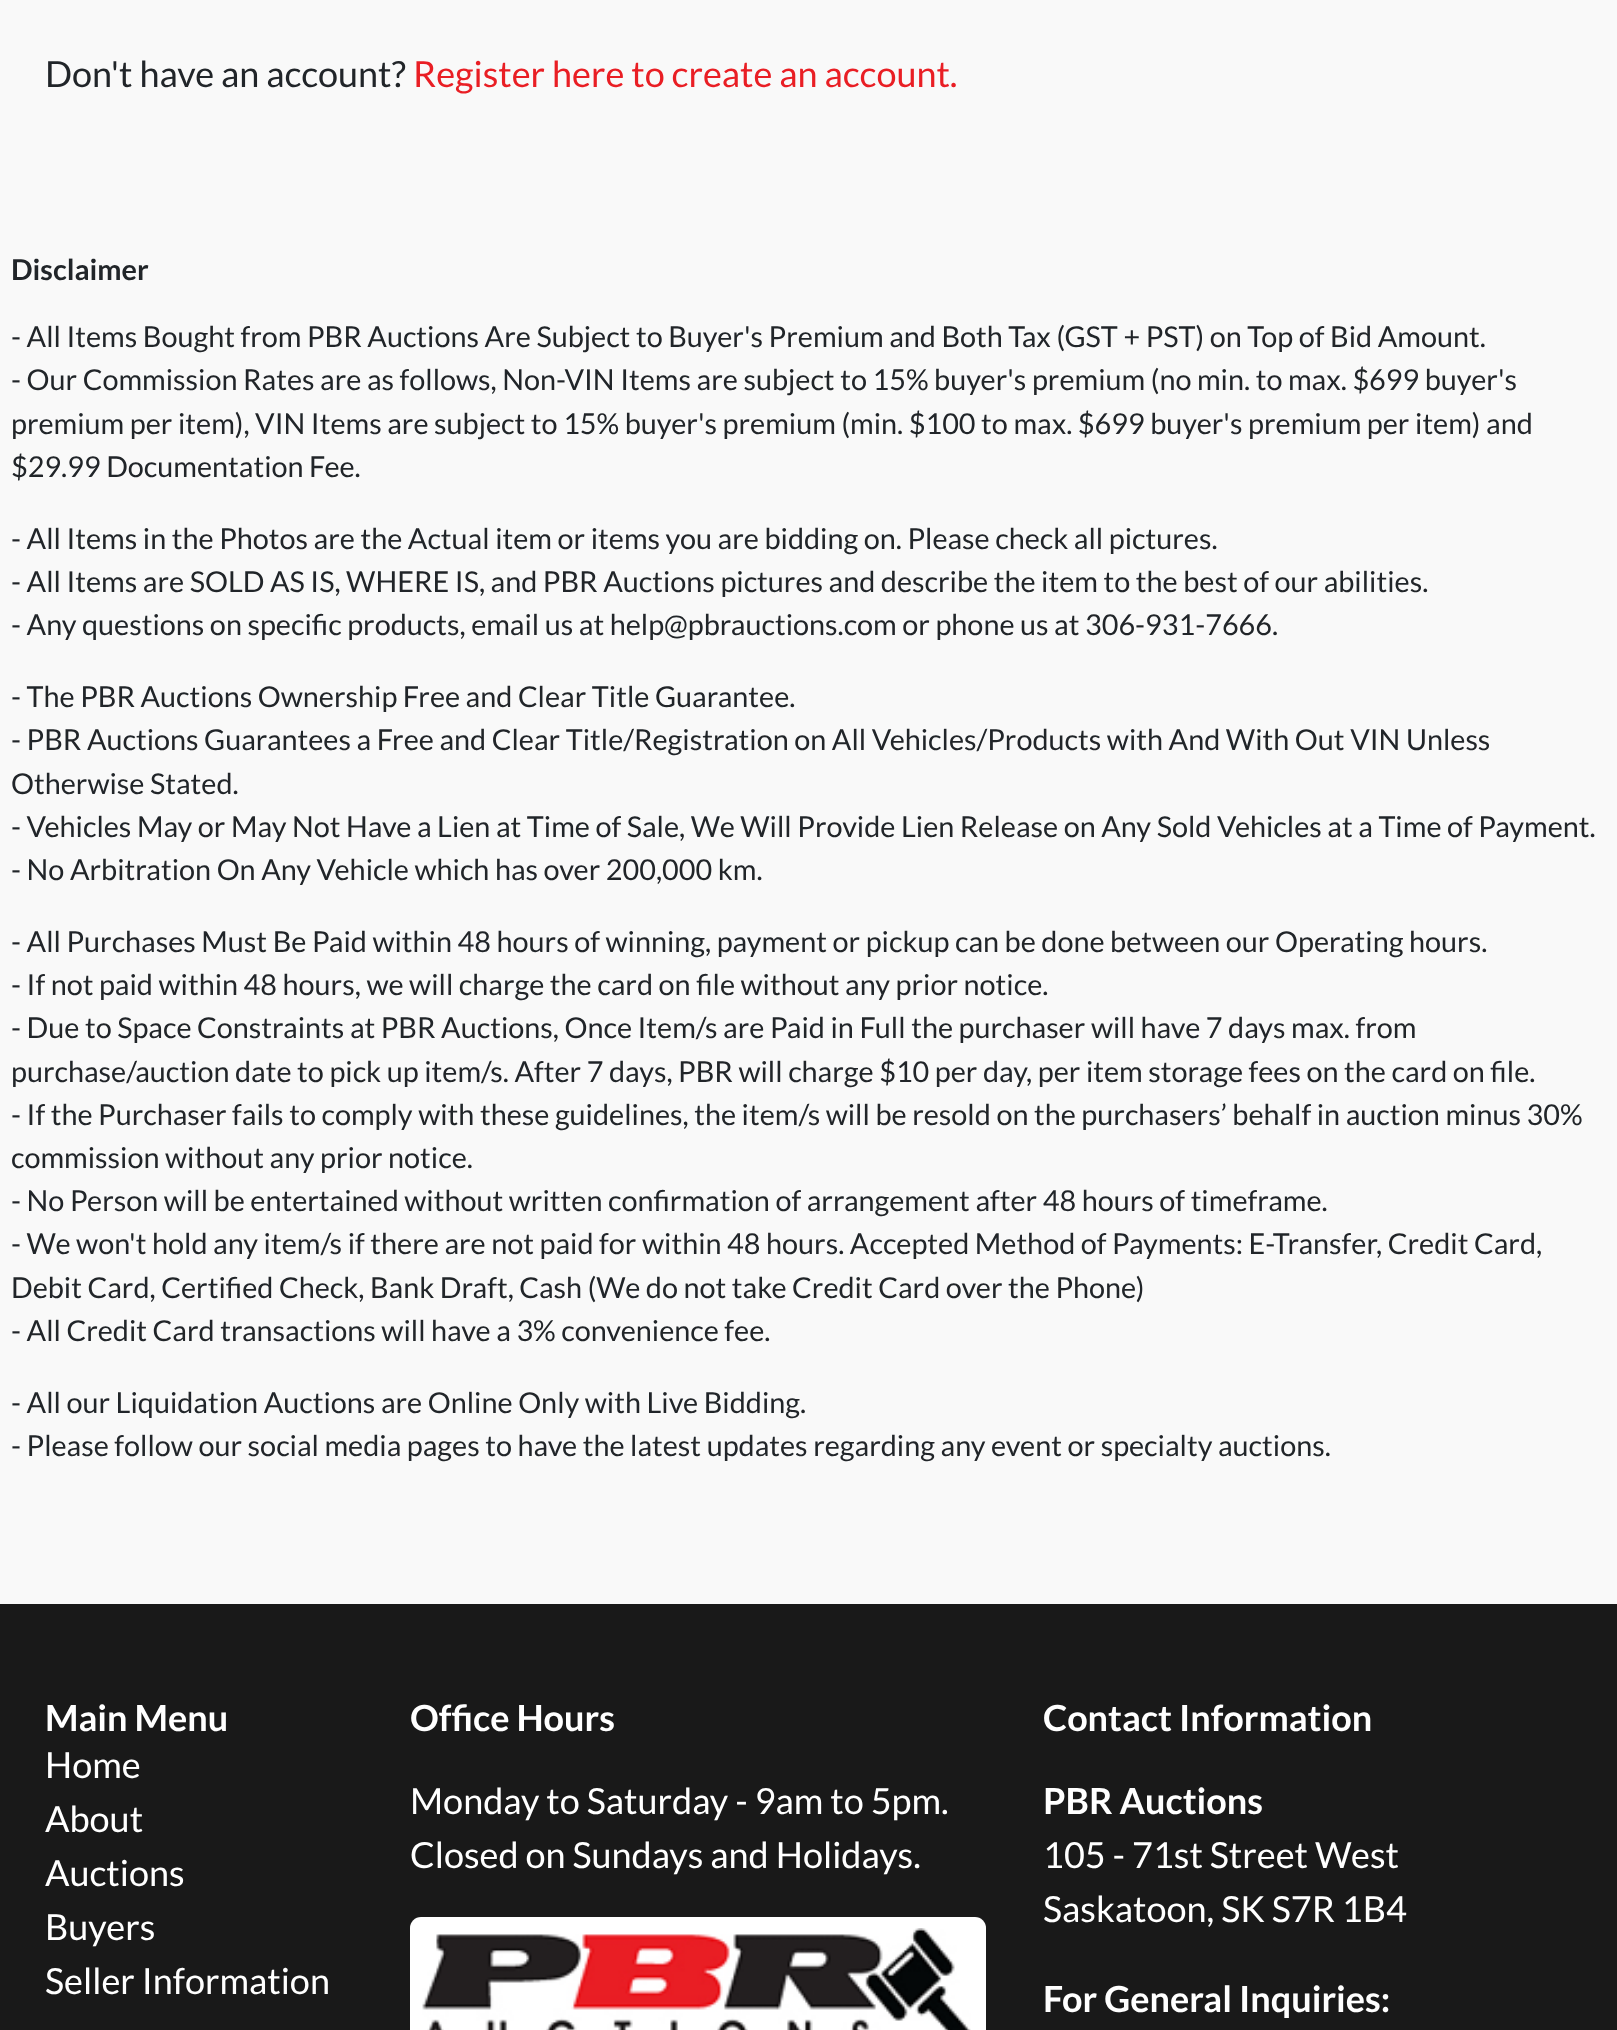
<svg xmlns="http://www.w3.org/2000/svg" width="1617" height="2030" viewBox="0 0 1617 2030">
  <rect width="100%" height="100%" fill="rgb(249,249,249)"/>
  <text x="45" y="87" font-family="Lato" font-size="36" fill="rgb(33,37,41)">Don't have an account?</text>
  <text x="413" y="87" font-family="Lato" font-size="36" fill="rgb(233,30,36)">Register here to create an account.</text>
  <text x="11" y="280" font-family="Lato" font-size="28.8" font-weight="bold" fill="rgb(33,37,41)">Disclaimer</text>
  <g font-family="Lato" font-size="28.8" fill="rgb(33,37,41)">
    <text>
      <tspan x="11" y="347">- All Items Bought from PBR Auctions Are Subject to Buyer's Premium and Both Tax (GST + PST) on Top of Bid Amount.</tspan>
      <tspan x="11" y="390">- Our Commission Rates are as follows, Non-VIN Items are subject to 15% buyer's premium (no min. to max. $699 buyer's</tspan>
      <tspan x="11" y="434">premium per item), VIN Items are subject to 15% buyer's premium (min. $100 to max. $699 buyer's premium per item) and</tspan>
      <tspan x="11" y="477">$29.99 Documentation Fee.</tspan>
    </text>
    <text>
      <tspan x="11" y="549">- All Items in the Photos are the Actual item or items you are bidding on. Please check all pictures.</tspan>
      <tspan x="11" y="592">- All Items are SOLD AS IS, WHERE IS, and PBR Auctions pictures and describe the item to the best of our abilities.</tspan>
      <tspan x="11" y="635">- Any questions on specific products, email us at help@pbrauctions.com or phone us at 306-931-7666.</tspan>
    </text>
    <text>
      <tspan x="11" y="707">- The PBR Auctions Ownership Free and Clear Title Guarantee.</tspan>
      <tspan x="11" y="750">- PBR Auctions Guarantees a Free and Clear Title/Registration on All Vehicles/Products with And With Out VIN Unless</tspan>
      <tspan x="11" y="794">Otherwise Stated.</tspan>
      <tspan x="11" y="837">- Vehicles May or May Not Have a Lien at Time of Sale, We Will Provide Lien Release on Any Sold Vehicles at a Time of Payment.</tspan>
      <tspan x="11" y="880">- No Arbitration On Any Vehicle which has over 200,000 km.</tspan>
    </text>
    <text>
      <tspan x="11" y="952">- All Purchases Must Be Paid within 48 hours of winning, payment or pickup can be done between our Operating hours.</tspan>
      <tspan x="11" y="995">- If not paid within 48 hours, we will charge the card on file without any prior notice.</tspan>
      <tspan x="11" y="1038">- Due to Space Constraints at PBR Auctions, Once Item/s are Paid in Full the purchaser will have 7 days max. from</tspan>
      <tspan x="11" y="1082">purchase/auction date to pick up item/s. After 7 days, PBR will charge $10 per day, per item storage fees on the card on file.</tspan>
      <tspan x="11" y="1125">- If the Purchaser fails to comply with these guidelines, the item/s will be resold on the purchasers’ behalf in auction minus 30%</tspan>
      <tspan x="11" y="1168">commission without any prior notice.</tspan>
      <tspan x="11" y="1211">- No Person will be entertained without written confirmation of arrangement after 48 hours of timeframe.</tspan>
      <tspan x="11" y="1254">- We won't hold any item/s if there are not paid for within 48 hours. Accepted Method of Payments: E-Transfer, Credit Card,</tspan>
      <tspan x="11" y="1298">Debit Card, Certified Check, Bank Draft, Cash (We do not take Credit Card over the Phone)</tspan>
      <tspan x="11" y="1341">- All Credit Card transactions will have a 3% convenience fee.</tspan>
    </text>
    <text>
      <tspan x="11" y="1413">- All our Liquidation Auctions are Online Only with Live Bidding.</tspan>
      <tspan x="11" y="1456">- Please follow our social media pages to have the latest updates regarding any event or specialty auctions.</tspan>
    </text>
  </g>
  <rect x="0" y="1604" width="1617" height="426" fill="rgb(25,25,25)"/>
  <text x="45" y="1731" font-family="Lato" font-size="36" font-weight="bold" fill="rgb(255,255,255)">Main Menu</text>
  <g font-family="Lato" font-size="36" fill="rgb(255,255,255)">
    <text>
      <tspan x="45" y="1778">Home</tspan>
      <tspan x="45" y="1832">About</tspan>
      <tspan x="45" y="1886">Auctions</tspan>
      <tspan x="45" y="1940">Buyers</tspan>
      <tspan x="45" y="1994">Seller Information</tspan>
    </text>
  </g>
  <text x="410" y="1731" font-family="Lato" font-size="36" font-weight="bold" fill="rgb(255,255,255)">Office Hours</text>
  <g font-family="Lato" font-size="36" fill="rgb(255,255,255)">
    <text>
      <tspan x="410" y="1814">Monday to Saturday - 9am to 5pm.</tspan>
      <tspan x="410" y="1868">Closed on Sundays and Holidays.</tspan>
    </text>
  </g>
  <rect x="410" y="1917" width="576" height="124" rx="11" fill="rgb(255,255,255)"/>
  <image x="422" y="1928" width="549" height="102" href="pic1.png"/>
  <g font-family="Lato" font-size="36" font-weight="bold" fill="rgb(255,255,255)">
    <text x="1043" y="1731">Contact Information</text>
    <text x="1043" y="1814">PBR Auctions</text>
  </g>
  <g font-family="Lato" font-size="36" fill="rgb(255,255,255)">
    <text>
      <tspan x="1043" y="1868">105 - 71st Street West</tspan>
      <tspan x="1043" y="1922">Saskatoon, SK S7R 1B4</tspan>
    </text>
  </g>
  <text x="1043" y="2012" font-family="Lato" font-size="36" font-weight="bold" fill="rgb(255,255,255)">For General Inquiries:</text>
</svg>
